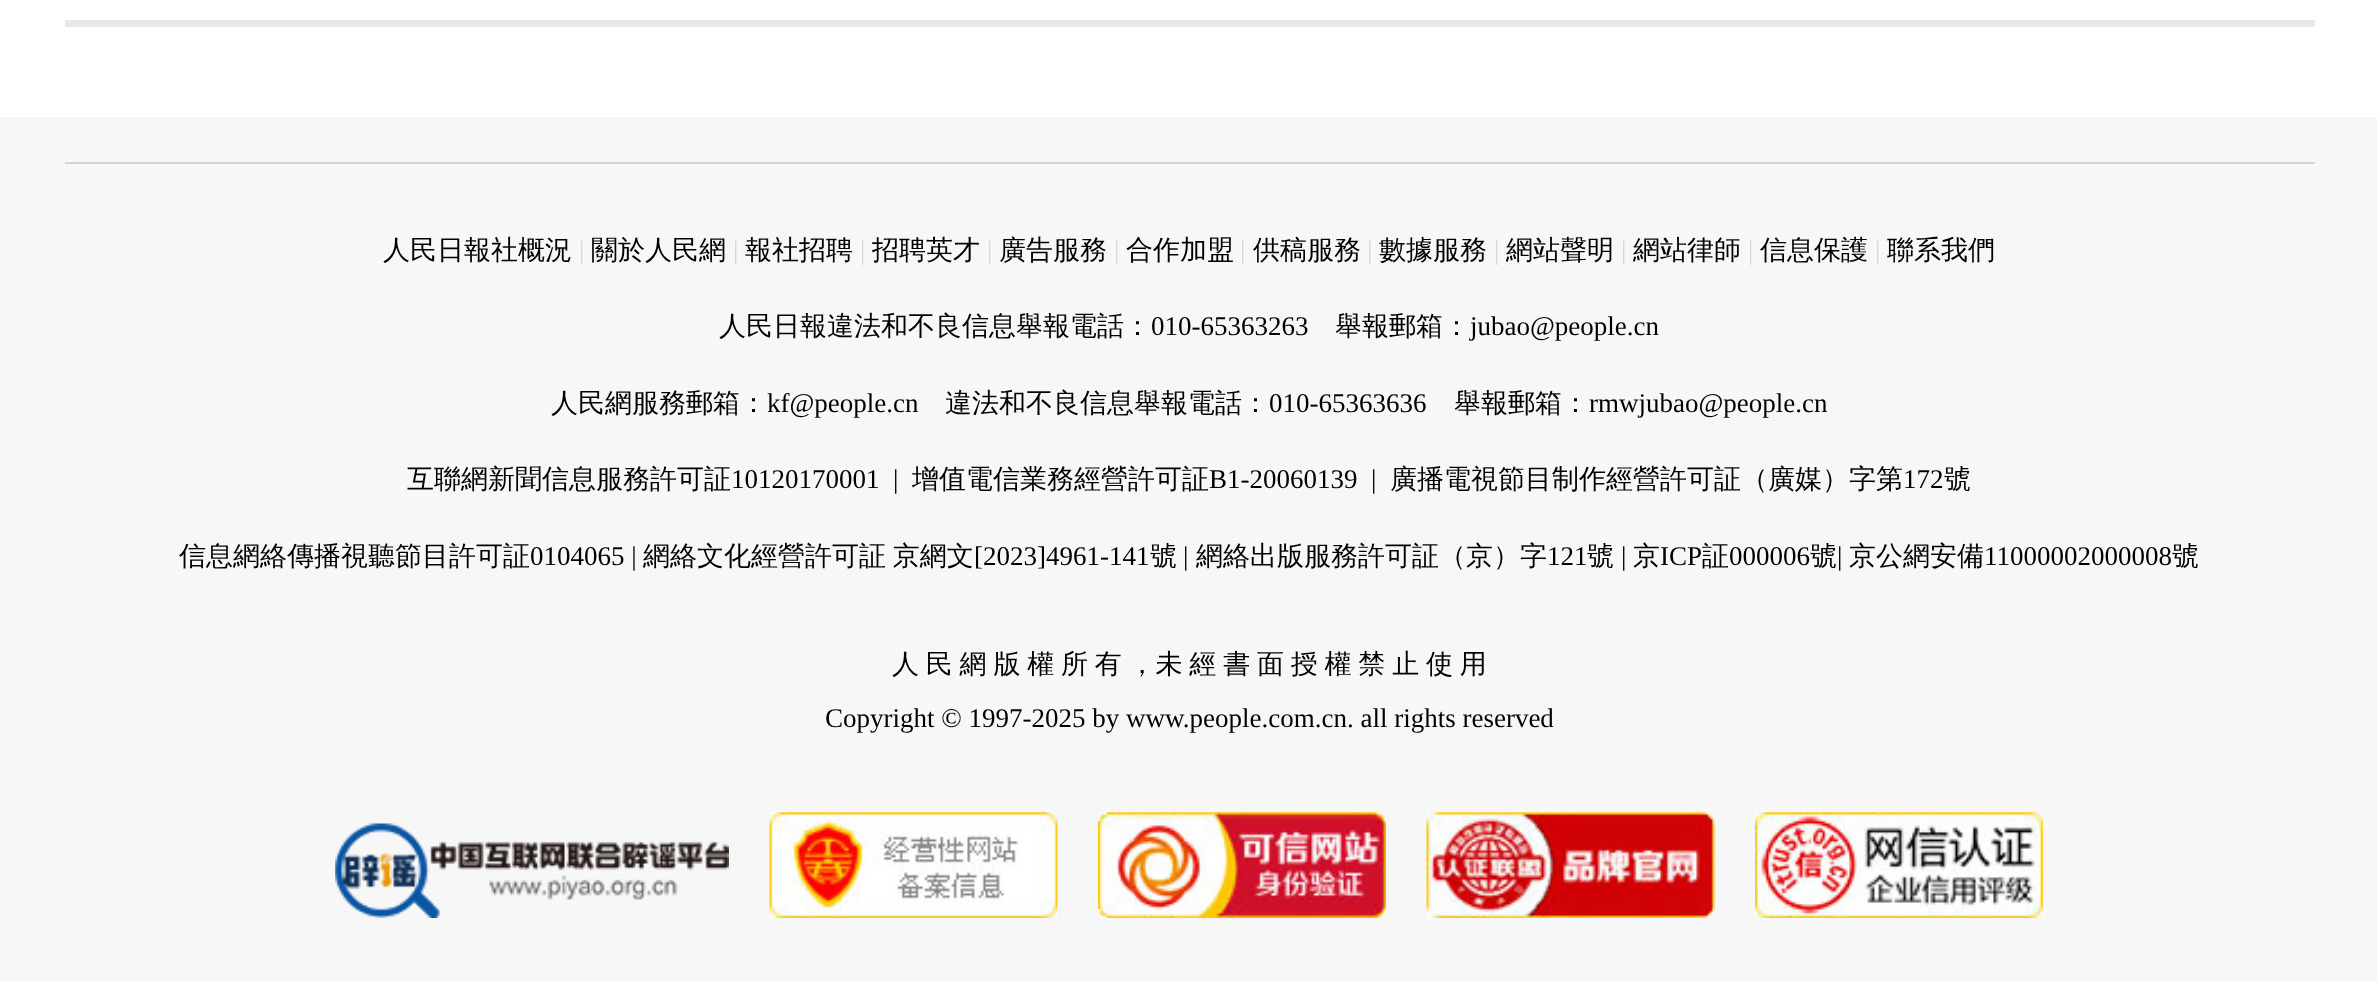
<svg xmlns="http://www.w3.org/2000/svg" width="2377" height="981" viewBox="0 0 2377 981">
  <rect width="100%" height="100%" fill="rgb(255,255,255)"/>
  <rect x="65" y="20" width="2250" height="7" fill="rgb(233,233,233)"/>
  <rect x="0" y="117" width="2377" height="864" fill="rgb(247,247,247)"/>
  <rect x="65" y="162" width="2250" height="2" fill="rgb(213,213,213)"/>
  <text x="383" y="259" font-family="WenQuanYi Zen Hei" font-size="27" font-weight="500" fill="rgb(0,0,0)">人民日報社概況</text>
  <text x="579" y="259" font-family="Liberation Serif" font-size="27" fill="rgb(216,216,216)">|</text>
  <text x="591" y="259" font-family="WenQuanYi Zen Hei" font-size="27" font-weight="500" fill="rgb(0,0,0)">關於人民網</text>
  <text x="733" y="259" font-family="Liberation Serif" font-size="27" fill="rgb(216,216,216)">|</text>
  <text x="745" y="259" font-family="WenQuanYi Zen Hei" font-size="27" font-weight="500" fill="rgb(0,0,0)">報社招聘</text>
  <text x="860" y="259" font-family="Liberation Serif" font-size="27" fill="rgb(216,216,216)">|</text>
  <text x="872" y="259" font-family="WenQuanYi Zen Hei" font-size="27" font-weight="500" fill="rgb(0,0,0)">招聘英才</text>
  <text x="987" y="259" font-family="Liberation Serif" font-size="27" fill="rgb(216,216,216)">|</text>
  <text x="999" y="259" font-family="WenQuanYi Zen Hei" font-size="27" font-weight="500" fill="rgb(0,0,0)">廣告服務</text>
  <text x="1114" y="259" font-family="Liberation Serif" font-size="27" fill="rgb(216,216,216)">|</text>
  <text x="1126" y="259" font-family="WenQuanYi Zen Hei" font-size="27" font-weight="500" fill="rgb(0,0,0)">合作加盟</text>
  <text x="1240" y="259" font-family="Liberation Serif" font-size="27" fill="rgb(216,216,216)">|</text>
  <text x="1253" y="259" font-family="WenQuanYi Zen Hei" font-size="27" font-weight="500" fill="rgb(0,0,0)">供稿服務</text>
  <text x="1367" y="259" font-family="Liberation Serif" font-size="27" fill="rgb(216,216,216)">|</text>
  <text x="1379" y="259" font-family="WenQuanYi Zen Hei" font-size="27" font-weight="500" fill="rgb(0,0,0)">數據服務</text>
  <text x="1494" y="259" font-family="Liberation Serif" font-size="27" fill="rgb(216,216,216)">|</text>
  <text x="1506" y="259" font-family="WenQuanYi Zen Hei" font-size="27" font-weight="500" fill="rgb(0,0,0)">網站聲明</text>
  <text x="1621" y="259" font-family="Liberation Serif" font-size="27" fill="rgb(216,216,216)">|</text>
  <text x="1633" y="259" font-family="WenQuanYi Zen Hei" font-size="27" font-weight="500" fill="rgb(0,0,0)">網站律師</text>
  <text x="1748" y="259" font-family="Liberation Serif" font-size="27" fill="rgb(216,216,216)">|</text>
  <text x="1760" y="259" font-family="WenQuanYi Zen Hei" font-size="27" font-weight="500" fill="rgb(0,0,0)">信息保護</text>
  <text x="1875" y="259" font-family="Liberation Serif" font-size="27" fill="rgb(216,216,216)">|</text>
  <g font-family="WenQuanYi Zen Hei" font-size="27" font-weight="500" fill="rgb(0,0,0)">
    <text x="1887" y="259">聯系我們</text>
    <text x="719" y="335">人民日報違法和不良信息舉報電話：</text>
  </g>
  <text x="1151" y="335" font-family="Liberation Serif" font-size="27" fill="rgb(0,0,0)">010-65363263</text>
  <text x="1335" y="335" font-family="WenQuanYi Zen Hei" font-size="27" font-weight="500" fill="rgb(0,0,0)">舉報郵箱：</text>
  <text x="1470" y="335" font-family="Liberation Serif" font-size="27" fill="rgb(0,0,0)">jubao@people.cn</text>
  <text x="551" y="412" font-family="WenQuanYi Zen Hei" font-size="27" font-weight="500" fill="rgb(0,0,0)">人民網服務郵箱：</text>
  <text x="767" y="412" font-family="Liberation Serif" font-size="27" fill="rgb(0,0,0)">kf@people.cn</text>
  <text x="945" y="412" font-family="WenQuanYi Zen Hei" font-size="27" font-weight="500" fill="rgb(0,0,0)">違法和不良信息舉報電話：</text>
  <text x="1269" y="412" font-family="Liberation Serif" font-size="27" fill="rgb(0,0,0)">010-65363636</text>
  <text x="1454" y="412" font-family="WenQuanYi Zen Hei" font-size="27" font-weight="500" fill="rgb(0,0,0)">舉報郵箱：</text>
  <text x="1589" y="412" font-family="Liberation Serif" font-size="27" fill="rgb(0,0,0)">rmwjubao@people.cn</text>
  <text x="407" y="488" font-family="WenQuanYi Zen Hei" font-size="27" font-weight="500" fill="rgb(0,0,0)">互聯網新聞信息服務許可証</text>
  <g font-family="Liberation Serif" font-size="27" fill="rgb(0,0,0)">
    <text x="731" y="488">10120170001</text>
    <text x="893" y="488">|</text>
  </g>
  <text x="912" y="488" font-family="WenQuanYi Zen Hei" font-size="27" font-weight="500" fill="rgb(0,0,0)">增值電信業務經營許可証</text>
  <g font-family="Liberation Serif" font-size="27" fill="rgb(0,0,0)">
    <text x="1209" y="488">B1-20060139</text>
    <text x="1371" y="488">|</text>
  </g>
  <text x="1390" y="488" font-family="WenQuanYi Zen Hei" font-size="27" font-weight="500" fill="rgb(0,0,0)">廣播電視節目制作經營許可証（廣媒）字第</text>
  <text x="1903" y="488" font-family="Liberation Serif" font-size="27" fill="rgb(0,0,0)">172</text>
  <g font-family="WenQuanYi Zen Hei" font-size="27" font-weight="500" fill="rgb(0,0,0)">
    <text x="1944" y="488">號</text>
    <text x="179" y="565">信息網絡傳播視聽節目許可証</text>
  </g>
  <text x="530" y="565" font-family="Liberation Serif" font-size="27" fill="rgb(0,0,0)">0104065 |</text>
  <text x="643" y="565" word-spacing="-1.3" font-family="WenQuanYi Zen Hei" font-size="27" font-weight="500" fill="rgb(0,0,0)">網絡文化經營許可証 京網文</text>
  <text x="974" y="565" font-family="Liberation Serif" font-size="27" fill="rgb(0,0,0)">[2023]4961-141</text>
  <text x="1150" y="565" font-family="WenQuanYi Zen Hei" font-size="27" font-weight="500" fill="rgb(0,0,0)">號</text>
  <text x="1183" y="565" font-family="Liberation Serif" font-size="27" fill="rgb(0,0,0)">|</text>
  <text x="1196" y="565" font-family="WenQuanYi Zen Hei" font-size="27" font-weight="500" fill="rgb(0,0,0)">網絡出版服務許可証（京）字</text>
  <text x="1547" y="565" font-family="Liberation Serif" font-size="27" fill="rgb(0,0,0)">121</text>
  <text x="1587" y="565" font-family="WenQuanYi Zen Hei" font-size="27" font-weight="500" fill="rgb(0,0,0)">號</text>
  <text x="1621" y="565" font-family="Liberation Serif" font-size="27" fill="rgb(0,0,0)">|</text>
  <text x="1633" y="565" font-family="WenQuanYi Zen Hei" font-size="27" font-weight="500" fill="rgb(0,0,0)">京</text>
  <text x="1660" y="565" font-family="Liberation Serif" font-size="27" fill="rgb(0,0,0)">ICP</text>
  <text x="1702" y="565" font-family="WenQuanYi Zen Hei" font-size="27" font-weight="500" fill="rgb(0,0,0)">証</text>
  <text x="1729" y="565" font-family="Liberation Serif" font-size="27" fill="rgb(0,0,0)">000006</text>
  <text x="1810" y="565" font-family="WenQuanYi Zen Hei" font-size="27" font-weight="500" fill="rgb(0,0,0)">號</text>
  <text x="1837" y="565" font-family="Liberation Serif" font-size="27" fill="rgb(0,0,0)">|</text>
  <text x="1849" y="565" font-family="WenQuanYi Zen Hei" font-size="27" font-weight="500" fill="rgb(0,0,0)">京公網安備</text>
  <text x="1984" y="565" font-family="Liberation Serif" font-size="27" fill="rgb(0,0,0)">11000002000008</text>
  <g font-family="WenQuanYi Zen Hei" font-size="27" font-weight="500" fill="rgb(0,0,0)">
    <text x="2172" y="565">號</text>
    <text x="892" y="673" word-spacing="-1.3">人 民 網 版 權 所 有 ，未 經 書 面 授 權 禁 止 使 用</text>
  </g>
  <text x="825" y="727" font-family="Liberation Serif" font-size="27" fill="rgb(0,0,0)">Copyright © 1997-2025 by www.people.com.cn. all rights reserved</text>
  <image x="335" y="823" width="394" height="95" href="pic1.png"/>
  <image x="769" y="812" width="289" height="106" href="pic2.png"/>
  <image x="1098" y="812" width="288" height="106" href="pic3.png"/>
  <image x="1426" y="812" width="289" height="106" href="pic4.png"/>
  <image x="1755" y="812" width="288" height="106" href="pic5.png"/>
</svg>
